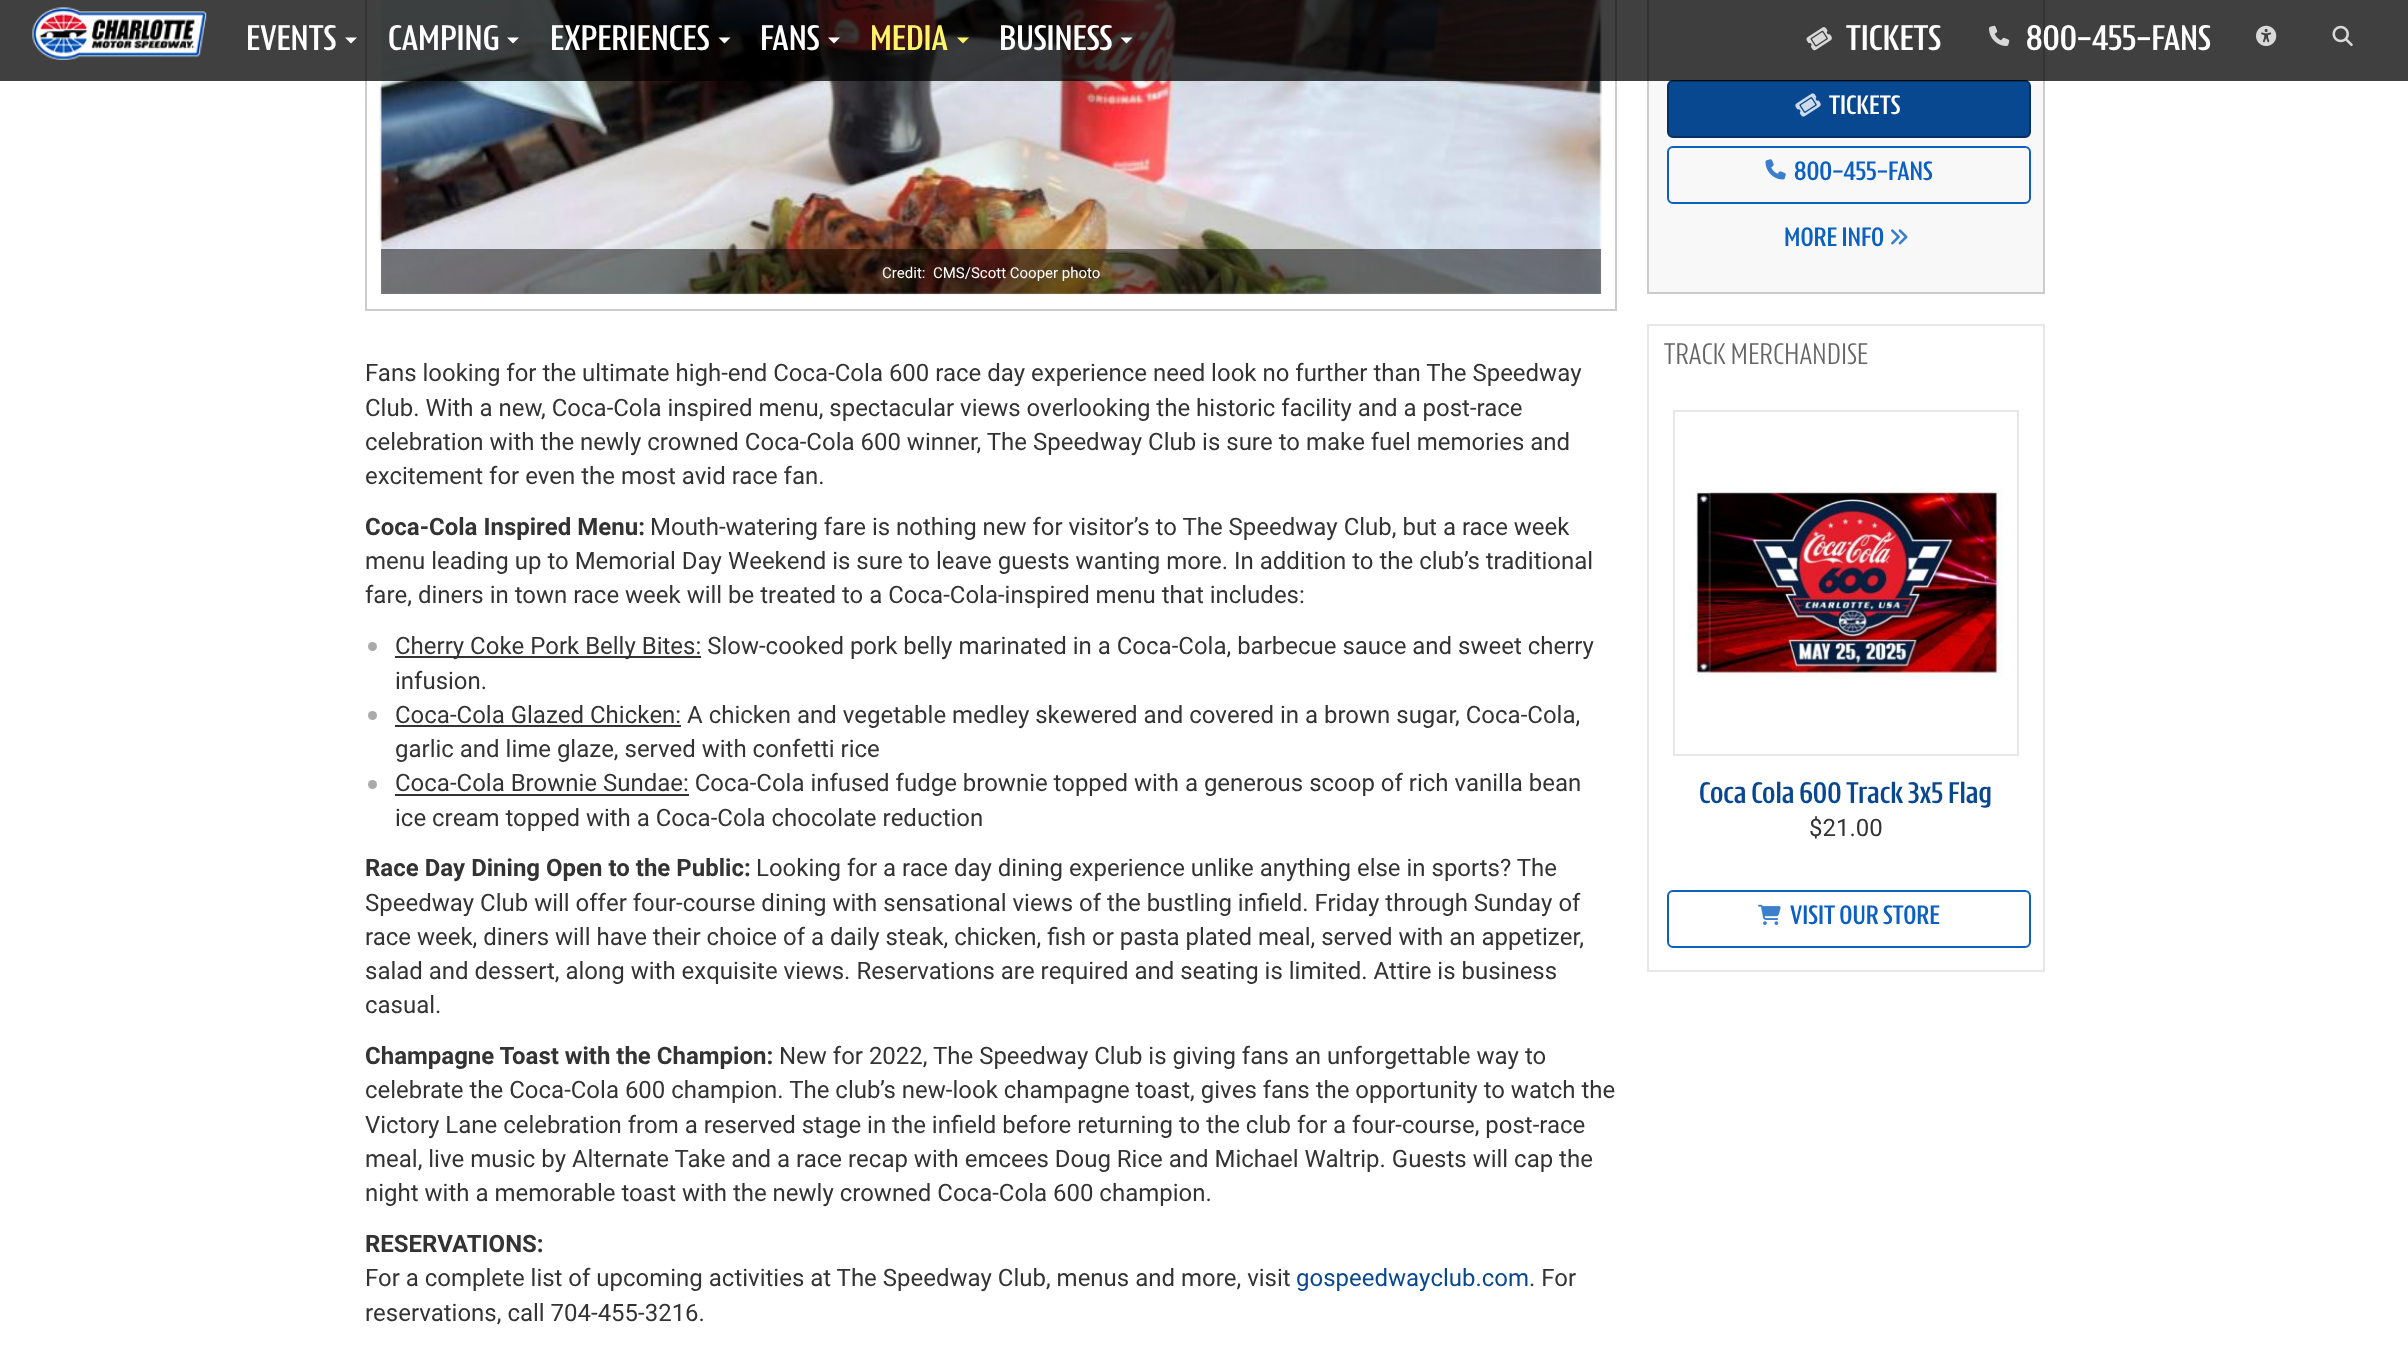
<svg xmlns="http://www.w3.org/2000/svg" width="2408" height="1353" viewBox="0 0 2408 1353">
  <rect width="100%" height="100%" fill="rgb(255,255,255)"/>
  <rect x="366" y="-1" width="1250" height="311" fill="none" stroke="rgb(204,204,204)" stroke-width="2"/>
  <image x="379" y="0" width="1223" height="295" href="pic6.png"/>
  <rect x="1648" y="-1" width="396" height="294" fill="rgb(248,248,248)" stroke="rgb(204,204,204)" stroke-width="2"/>
  <rect x="1668" y="81" width="362" height="56" rx="5" fill="rgb(8,72,145)" stroke="rgb(5,48,97)" stroke-width="2"/>
  <rect x="0" y="0" width="2408" height="81" fill="rgba(0,0,0,0.75)"/>
  <text x="246" y="50" font-family="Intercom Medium" font-size="36" font-weight="500" fill="rgb(255,255,255)">EVENTS</text>
  <path d="M345 37.5H357L351 43.5Z" fill="rgb(255,255,255)"/>
  <text x="388" y="50" font-family="Intercom Medium" font-size="36" font-weight="500" fill="rgb(255,255,255)">CAMPING</text>
  <path d="M507 37.5H519L513 43.5Z" fill="rgb(255,255,255)"/>
  <text x="550" y="50" font-family="Intercom Medium" font-size="36" font-weight="500" fill="rgb(255,255,255)">EXPERIENCES</text>
  <path d="M718.5 37.5H730.5L724.5 43.5Z" fill="rgb(255,255,255)"/>
  <text x="760" y="50" font-family="Intercom Medium" font-size="36" font-weight="500" fill="rgb(255,255,255)">FANS</text>
  <path d="M828 37.5H840L834 43.5Z" fill="rgb(255,255,255)"/>
  <text x="870" y="50" font-family="Intercom Medium" font-size="36" font-weight="500" fill="rgb(255,245,104)">MEDIA</text>
  <path d="M957 37.5H969L963 43.5Z" fill="rgb(255,245,104)"/>
  <text x="999" y="50" font-family="Intercom Medium" font-size="36" font-weight="500" fill="rgb(255,255,255)">BUSINESS</text>
  <path d="M1120.5 37.5H1132.5L1126.5 43.5Z" fill="rgb(255,255,255)"/>
  <image x="32" y="7" width="175" height="53" href="pic1.png"/>
  <image x="1806" y="27" width="26" height="24" href="pic2.png"/>
  <text x="1846" y="50" font-family="Intercom Medium" font-size="36" font-weight="500" fill="rgb(255,255,255)">TICKETS</text>
  <image x="1989" y="25" width="21" height="21" href="pic3.png"/>
  <text x="2026" y="50" font-family="Intercom Medium" font-size="36" font-weight="500" fill="rgb(255,255,255)">800-455-FANS</text>
  <image x="2256" y="25" width="21" height="21" href="pic4.png"/>
  <image x="2332" y="25" width="21" height="21" href="pic5.png"/>
  <rect x="381" y="249" width="1220" height="45" fill="rgba(0,0,0,0.5)"/>
  <g font-family="Roboto" font-size="15" fill="rgb(255,255,255)">
    <text x="882" y="278">Credit:</text>
    <text x="933" y="278">CMS/Scott Cooper photo</text>
  </g>
  <g font-family="Roboto" font-size="24" fill="rgb(51,51,51)">
    <text>
      <tspan x="365" y="381">Fans looking for the ultimate high-end Coca-Cola 600 race day experience need look no further than The Speedway</tspan>
      <tspan x="365" y="416">Club. With a new, Coca-Cola inspired menu, spectacular views overlooking the historic facility and a post-race</tspan>
      <tspan x="365" y="450">celebration with the newly crowned Coca-Cola 600 winner, The Speedway Club is sure to make fuel memories and</tspan>
      <tspan x="365" y="484">excitement for even the most avid race fan.</tspan>
    </text>
  </g>
  <text x="365" y="535" font-family="Roboto" font-size="24" font-weight="bold" fill="rgb(51,51,51)">Coca-Cola Inspired Menu:</text>
  <g font-family="Roboto" font-size="24" fill="rgb(51,51,51)">
    <text x="650" y="535">Mouth-watering fare is nothing new for visitor’s to The Speedway Club, but a race week</text>
    <text>
      <tspan x="365" y="569">menu leading up to Memorial Day Weekend is sure to leave guests wanting more. In addition to the club’s traditional</tspan>
      <tspan x="365" y="603">fare, diners in town race week will be treated to a Coca-Cola-inspired menu that includes:</tspan>
    </text>
  </g>
  <circle cx="372.5" cy="646.5" r="4.5" fill="rgb(170,170,170)"/>
  <rect x="395" y="656" width="306" height="2" fill="rgb(51,51,51)"/>
  <g font-family="Roboto" font-size="24" fill="rgb(51,51,51)">
    <text>
      <tspan x="395" y="654">Cherry Coke Pork Belly Bites: Slow-cooked pork belly marinated in a Coca-Cola, barbecue sauce and sweet cherry</tspan>
      <tspan x="395" y="689">infusion.</tspan>
    </text>
  </g>
  <circle cx="372.5" cy="715.5" r="4.5" fill="rgb(170,170,170)"/>
  <rect x="395" y="725" width="286" height="2" fill="rgb(51,51,51)"/>
  <g font-family="Roboto" font-size="24" fill="rgb(51,51,51)">
    <text>
      <tspan x="395" y="723">Coca-Cola Glazed Chicken: A chicken and vegetable medley skewered and covered in a brown sugar, Coca-Cola,</tspan>
      <tspan x="395" y="757">garlic and lime glaze, served with confetti rice</tspan>
    </text>
  </g>
  <circle cx="372.5" cy="784.5" r="4.5" fill="rgb(170,170,170)"/>
  <rect x="395" y="794" width="294" height="2" fill="rgb(51,51,51)"/>
  <g font-family="Roboto" font-size="24" fill="rgb(51,51,51)">
    <text>
      <tspan x="395" y="791">Coca-Cola Brownie Sundae: Coca-Cola infused fudge brownie topped with a generous scoop of rich vanilla bean</tspan>
      <tspan x="395" y="826">ice cream topped with a Coca-Cola chocolate reduction</tspan>
    </text>
  </g>
  <text x="365" y="876" font-family="Roboto" font-size="24" font-weight="bold" fill="rgb(51,51,51)">Race Day Dining Open to the Public:</text>
  <g font-family="Roboto" font-size="24" fill="rgb(51,51,51)">
    <text x="756" y="876">Looking for a race day dining experience unlike anything else in sports? The</text>
    <text>
      <tspan x="365" y="911">Speedway Club will offer four-course dining with sensational views of the bustling infield. Friday through Sunday of</tspan>
      <tspan x="365" y="945">race week, diners will have their choice of a daily steak, chicken, fish or pasta plated meal, served with an appetizer,</tspan>
      <tspan x="365" y="979">salad and dessert, along with exquisite views. Reservations are required and seating is limited. Attire is business</tspan>
      <tspan x="365" y="1013">casual.</tspan>
    </text>
  </g>
  <text x="365" y="1064" font-family="Roboto" font-size="24" font-weight="bold" fill="rgb(51,51,51)">Champagne Toast with the Champion:</text>
  <g font-family="Roboto" font-size="24" fill="rgb(51,51,51)">
    <text x="779" y="1064">New for 2022, The Speedway Club is giving fans an unforgettable way to</text>
    <text>
      <tspan x="365" y="1098">celebrate the Coca-Cola 600 champion. The club’s new-look champagne toast, gives fans the opportunity to watch the</tspan>
      <tspan x="365" y="1133">Victory Lane celebration from a reserved stage in the infield before returning to the club for a four-course, post-race</tspan>
      <tspan x="365" y="1167">meal, live music by Alternate Take and a race recap with emcees Doug Rice and Michael Waltrip. Guests will cap the</tspan>
      <tspan x="365" y="1201">night with a memorable toast with the newly crowned Coca-Cola 600 champion.</tspan>
    </text>
  </g>
  <text x="365" y="1252" font-family="Roboto" font-size="24" font-weight="bold" fill="rgb(51,51,51)">RESERVATIONS:</text>
  <text x="365" y="1286" font-family="Roboto" font-size="24" fill="rgb(51,51,51)">For a complete list of upcoming activities at The Speedway Club, menus and more, visit</text>
  <text x="1296" y="1286" font-family="Roboto" font-size="24" fill="rgb(8,72,145)">gospeedwayclub.com</text>
  <g font-family="Roboto" font-size="24" fill="rgb(51,51,51)">
    <text x="1529" y="1286">. For</text>
    <text x="365" y="1321">reservations, call 704-455-3216.</text>
  </g>
  <image x="1795" y="93" width="26" height="24" href="pic7.png"/>
  <text x="1829" y="114" font-family="Intercom Medium" font-size="27" font-weight="500" fill="rgb(255,255,255)">TICKETS</text>
  <rect x="1668" y="147" width="362" height="56" rx="5" fill="none" stroke="rgb(11,96,193)" stroke-width="2"/>
  <image x="1765" y="159" width="21" height="21" href="pic8.png"/>
  <g font-family="Intercom Medium" font-size="27" font-weight="500" fill="rgb(11,96,193)">
    <text x="1794" y="180">800-455-FANS</text>
    <text x="1784" y="246">MORE INFO</text>
  </g>
  <image x="1891" y="229" width="17" height="16" href="pic9.png"/>
  <rect x="1648" y="325" width="396" height="646" fill="none" stroke="rgb(231,231,231)" stroke-width="2"/>
  <text x="1664" y="364" font-family="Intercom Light" font-size="30" font-weight="300" fill="rgb(102,102,102)">TRACK MERCHANDISE</text>
  <rect x="1674" y="411" width="344" height="344" fill="none" stroke="rgb(231,231,231)" stroke-width="2"/>
  <image x="1689" y="488" width="314" height="189" href="pic10.png"/>
  <text x="1699" y="803" font-family="Intercom Medium" font-size="30" font-weight="500" fill="rgb(8,72,145)">Coca Cola 600 Track 3x5 Flag</text>
  <text x="1809" y="836" font-family="Roboto" font-size="24" fill="rgb(51,51,51)">$21.00</text>
  <rect x="1668" y="891" width="362" height="56" rx="5" fill="none" stroke="rgb(11,96,193)" stroke-width="2"/>
  <image x="1758" y="904" width="23" height="21" href="pic11.png"/>
  <text x="1790" y="924" font-family="Intercom Medium" font-size="27" font-weight="500" fill="rgb(11,96,193)">VISIT OUR STORE</text>
</svg>
